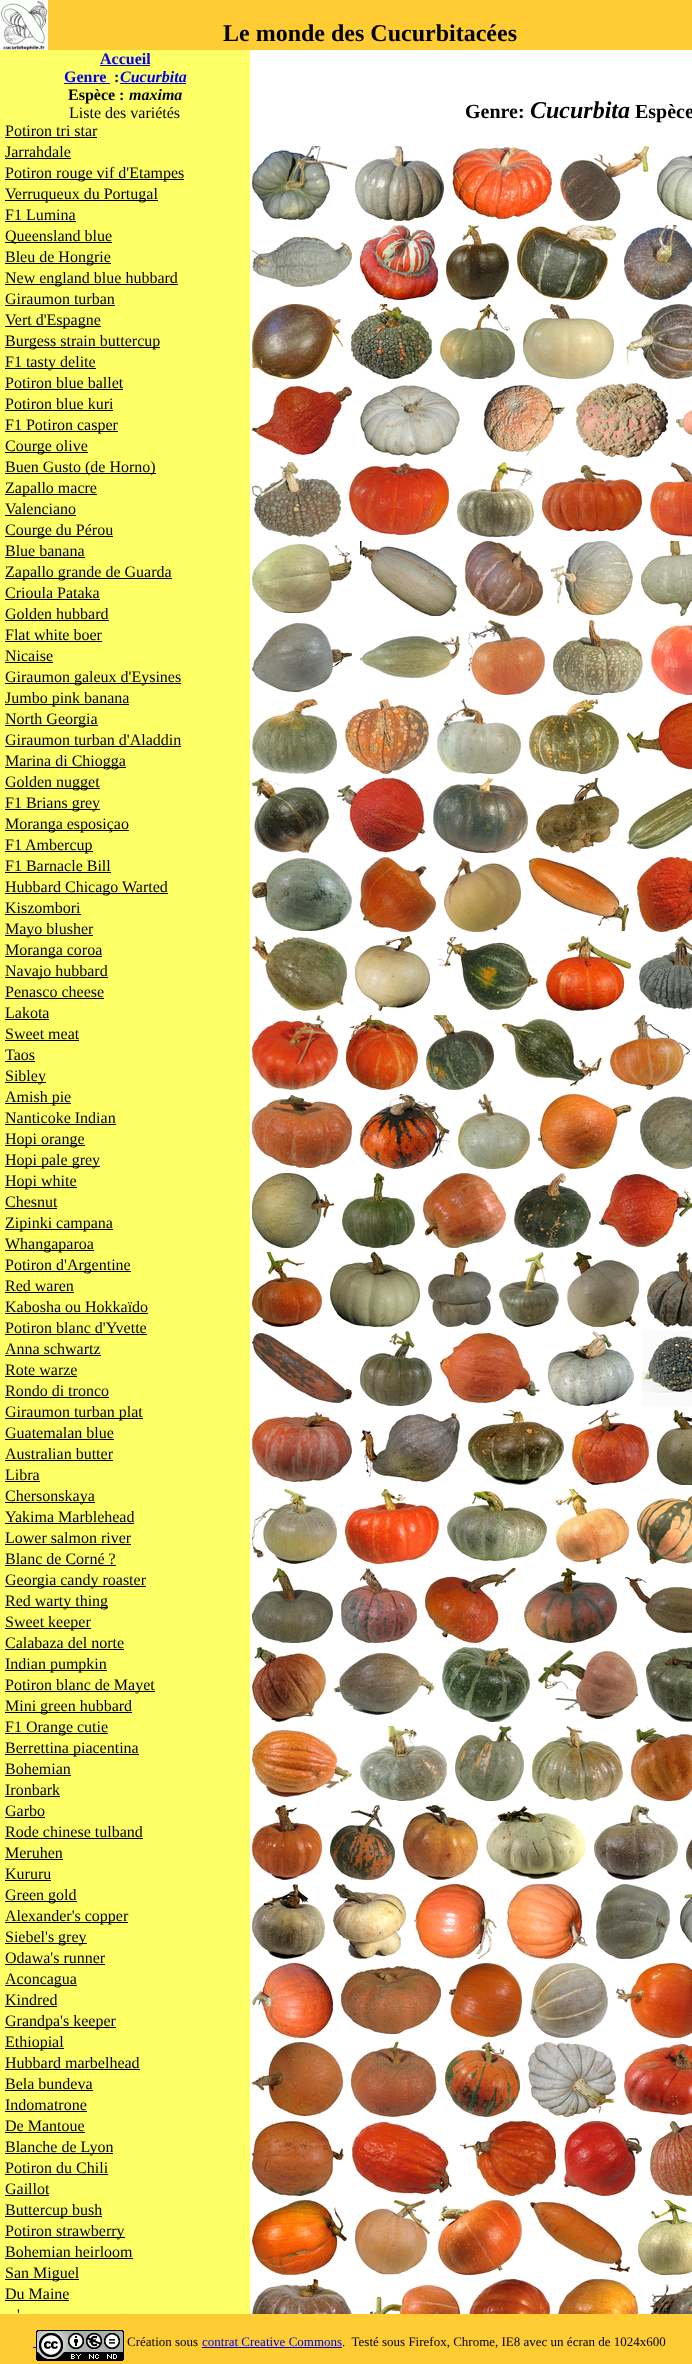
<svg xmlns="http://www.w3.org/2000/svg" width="692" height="2364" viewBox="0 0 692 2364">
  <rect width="100%" height="100%" fill="rgb(255,255,255)"/>
  <rect x="48" y="0" width="644" height="50" fill="rgb(255,204,51)"/>
  <image x="0" y="0" width="48" height="50" href="pic1.png"/>
  <text x="223" y="41" font-family="Liberation Serif" font-size="24" font-weight="bold" fill="rgb(0,0,0)">Le monde des Cucurbitacées</text>
  <rect x="0" y="50" width="250" height="2264" fill="rgb(255,255,102)"/>
  <text x="100" y="64" font-family="Liberation Serif" font-size="16" font-weight="bold" fill="rgb(0,0,238)">Accueil</text>
  <rect x="100" y="65" width="50" height="1" fill="rgb(0,0,238)"/>
  <text x="64" y="82" font-family="Liberation Serif" font-size="16" font-weight="bold" fill="rgb(0,0,238)">Genre</text>
  <rect x="64" y="83" width="46" height="1" fill="rgb(0,0,238)"/>
  <text x="114" y="82" font-family="Liberation Serif" font-size="16" font-weight="bold" fill="rgb(0,0,0)">:</text>
  <rect x="120" y="83" width="66" height="1" fill="rgb(0,0,238)"/>
  <text x="120" y="82" font-family="Liberation Serif" font-size="16" font-weight="bold" font-style="italic" fill="rgb(0,0,238)">Cucurbita</text>
  <text x="68" y="100" font-family="Liberation Serif" font-size="16" font-weight="bold" fill="rgb(0,0,0)">Espèce :</text>
  <text x="129" y="100" font-family="Liberation Serif" font-size="16" font-weight="bold" font-style="italic" fill="rgb(0,0,0)">maxima</text>
  <g font-family="Liberation Serif" font-size="16" fill="rgb(0,0,0)">
    <text x="69" y="118">Liste des variétés</text>
    <text x="5" y="136">Potiron tri star</text>
  </g>
  <rect x="5" y="137" width="92" height="1" fill="rgb(0,0,0)"/>
  <text x="5" y="157" font-family="Liberation Serif" font-size="16" fill="rgb(0,0,0)">Jarrahdale</text>
  <rect x="5" y="158" width="66" height="1" fill="rgb(0,0,0)"/>
  <rect x="5" y="179" width="179" height="1" fill="rgb(0,0,0)"/>
  <text x="5" y="178" font-family="Liberation Serif" font-size="16" fill="rgb(0,0,0)">Potiron rouge vif d'Etampes</text>
  <rect x="5" y="200" width="153" height="1" fill="rgb(0,0,0)"/>
  <g font-family="Liberation Serif" font-size="16" fill="rgb(0,0,0)">
    <text>
      <tspan x="5" y="199">Verruqueux du Portugal</tspan>
      <tspan x="5" y="220">F1 Lumina</tspan>
    </text>
  </g>
  <rect x="5" y="221" width="71" height="1" fill="rgb(0,0,0)"/>
  <rect x="5" y="242" width="107" height="1" fill="rgb(0,0,0)"/>
  <text x="5" y="241" font-family="Liberation Serif" font-size="16" fill="rgb(0,0,0)">Queensland blue</text>
  <rect x="5" y="263" width="106" height="1" fill="rgb(0,0,0)"/>
  <text x="5" y="262" font-family="Liberation Serif" font-size="16" fill="rgb(0,0,0)">Bleu de Hongrie</text>
  <rect x="5" y="284" width="173" height="1" fill="rgb(0,0,0)"/>
  <g font-family="Liberation Serif" font-size="16" fill="rgb(0,0,0)">
    <text>
      <tspan x="5" y="283">New england blue hubbard</tspan>
      <tspan x="5" y="304">Giraumon turban</tspan>
    </text>
  </g>
  <rect x="5" y="305" width="110" height="1" fill="rgb(0,0,0)"/>
  <rect x="5" y="326" width="96" height="1" fill="rgb(0,0,0)"/>
  <text x="5" y="325" font-family="Liberation Serif" font-size="16" fill="rgb(0,0,0)">Vert d'Espagne</text>
  <rect x="5" y="347" width="155" height="1" fill="rgb(0,0,0)"/>
  <text x="5" y="346" font-family="Liberation Serif" font-size="16" fill="rgb(0,0,0)">Burgess strain buttercup</text>
  <rect x="5" y="368" width="91" height="1" fill="rgb(0,0,0)"/>
  <g font-family="Liberation Serif" font-size="16" fill="rgb(0,0,0)">
    <text>
      <tspan x="5" y="367">F1 tasty delite</tspan>
      <tspan x="5" y="388">Potiron blue ballet</tspan>
    </text>
  </g>
  <rect x="5" y="389" width="118" height="1" fill="rgb(0,0,0)"/>
  <text x="5" y="409" font-family="Liberation Serif" font-size="16" fill="rgb(0,0,0)">Potiron blue kuri</text>
  <rect x="5" y="410" width="108" height="1" fill="rgb(0,0,0)"/>
  <rect x="5" y="431" width="113" height="1" fill="rgb(0,0,0)"/>
  <text x="5" y="430" font-family="Liberation Serif" font-size="16" fill="rgb(0,0,0)">F1 Potiron casper</text>
  <rect x="5" y="452" width="83" height="1" fill="rgb(0,0,0)"/>
  <text x="5" y="451" font-family="Liberation Serif" font-size="16" fill="rgb(0,0,0)">Courge olive</text>
  <rect x="5" y="473" width="151" height="1" fill="rgb(0,0,0)"/>
  <text x="5" y="472" font-family="Liberation Serif" font-size="16" fill="rgb(0,0,0)">Buen Gusto (de Horno)</text>
  <rect x="5" y="494" width="92" height="1" fill="rgb(0,0,0)"/>
  <g font-family="Liberation Serif" font-size="16" fill="rgb(0,0,0)">
    <text>
      <tspan x="5" y="493">Zapallo macre</tspan>
      <tspan x="5" y="514">Valenciano</tspan>
    </text>
  </g>
  <rect x="5" y="515" width="71" height="1" fill="rgb(0,0,0)"/>
  <rect x="5" y="536" width="108" height="1" fill="rgb(0,0,0)"/>
  <g font-family="Liberation Serif" font-size="16" fill="rgb(0,0,0)">
    <text>
      <tspan x="5" y="535">Courge du Pérou</tspan>
      <tspan x="5" y="556">Blue banana</tspan>
    </text>
  </g>
  <rect x="5" y="557" width="80" height="1" fill="rgb(0,0,0)"/>
  <rect x="5" y="578" width="167" height="1" fill="rgb(0,0,0)"/>
  <g font-family="Liberation Serif" font-size="16" fill="rgb(0,0,0)">
    <text>
      <tspan x="5" y="577">Zapallo grande de Guarda</tspan>
      <tspan x="5" y="598">Crioula Pataka</tspan>
    </text>
  </g>
  <rect x="5" y="599" width="95" height="1" fill="rgb(0,0,0)"/>
  <text x="5" y="619" font-family="Liberation Serif" font-size="16" fill="rgb(0,0,0)">Golden hubbard</text>
  <rect x="5" y="620" width="104" height="1" fill="rgb(0,0,0)"/>
  <text x="5" y="640" font-family="Liberation Serif" font-size="16" fill="rgb(0,0,0)">Flat white boer</text>
  <rect x="5" y="641" width="97" height="1" fill="rgb(0,0,0)"/>
  <text x="5" y="661" font-family="Liberation Serif" font-size="16" fill="rgb(0,0,0)">Nicaise</text>
  <rect x="5" y="662" width="48" height="1" fill="rgb(0,0,0)"/>
  <rect x="5" y="683" width="176" height="1" fill="rgb(0,0,0)"/>
  <text x="5" y="682" font-family="Liberation Serif" font-size="16" fill="rgb(0,0,0)">Giraumon galeux d'Eysines</text>
  <rect x="5" y="704" width="124" height="1" fill="rgb(0,0,0)"/>
  <text x="5" y="703" font-family="Liberation Serif" font-size="16" fill="rgb(0,0,0)">Jumbo pink banana</text>
  <rect x="5" y="725" width="93" height="1" fill="rgb(0,0,0)"/>
  <g font-family="Liberation Serif" font-size="16" fill="rgb(0,0,0)">
    <text>
      <tspan x="5" y="724">North Georgia</tspan>
      <tspan x="5" y="745">Giraumon turban d'Aladdin</tspan>
    </text>
  </g>
  <rect x="5" y="746" width="176" height="1" fill="rgb(0,0,0)"/>
  <rect x="5" y="767" width="121" height="1" fill="rgb(0,0,0)"/>
  <text x="5" y="766" font-family="Liberation Serif" font-size="16" fill="rgb(0,0,0)">Marina di Chiogga</text>
  <rect x="5" y="788" width="95" height="1" fill="rgb(0,0,0)"/>
  <text x="5" y="787" font-family="Liberation Serif" font-size="16" fill="rgb(0,0,0)">Golden nugget</text>
  <rect x="5" y="809" width="95" height="1" fill="rgb(0,0,0)"/>
  <text x="5" y="808" font-family="Liberation Serif" font-size="16" fill="rgb(0,0,0)">F1 Brians grey</text>
  <rect x="5" y="830" width="124" height="1" fill="rgb(0,0,0)"/>
  <text x="5" y="829" font-family="Liberation Serif" font-size="16" fill="rgb(0,0,0)">Moranga esposiçao</text>
  <rect x="5" y="851" width="88" height="1" fill="rgb(0,0,0)"/>
  <g font-family="Liberation Serif" font-size="16" fill="rgb(0,0,0)">
    <text>
      <tspan x="5" y="850">F1 Ambercup</tspan>
      <tspan x="5" y="871">F1 Barnacle Bill</tspan>
    </text>
  </g>
  <rect x="5" y="872" width="106" height="1" fill="rgb(0,0,0)"/>
  <rect x="5" y="893" width="163" height="1" fill="rgb(0,0,0)"/>
  <g font-family="Liberation Serif" font-size="16" fill="rgb(0,0,0)">
    <text>
      <tspan x="5" y="892">Hubbard Chicago Warted</tspan>
      <tspan x="5" y="913">Kiszombori</tspan>
    </text>
  </g>
  <rect x="5" y="914" width="76" height="1" fill="rgb(0,0,0)"/>
  <rect x="5" y="935" width="88" height="1" fill="rgb(0,0,0)"/>
  <text x="5" y="934" font-family="Liberation Serif" font-size="16" fill="rgb(0,0,0)">Mayo blusher</text>
  <rect x="5" y="956" width="97" height="1" fill="rgb(0,0,0)"/>
  <text x="5" y="955" font-family="Liberation Serif" font-size="16" fill="rgb(0,0,0)">Moranga coroa</text>
  <rect x="5" y="977" width="103" height="1" fill="rgb(0,0,0)"/>
  <g font-family="Liberation Serif" font-size="16" fill="rgb(0,0,0)">
    <text>
      <tspan x="5" y="976">Navajo hubbard</tspan>
      <tspan x="5" y="997">Penasco cheese</tspan>
    </text>
  </g>
  <rect x="5" y="998" width="99" height="1" fill="rgb(0,0,0)"/>
  <text x="5" y="1018" font-family="Liberation Serif" font-size="16" fill="rgb(0,0,0)">Lakota</text>
  <rect x="5" y="1019" width="44" height="1" fill="rgb(0,0,0)"/>
  <text x="5" y="1039" font-family="Liberation Serif" font-size="16" fill="rgb(0,0,0)">Sweet meat</text>
  <rect x="5" y="1040" width="74" height="1" fill="rgb(0,0,0)"/>
  <text x="5" y="1060" font-family="Liberation Serif" font-size="16" fill="rgb(0,0,0)">Taos</text>
  <rect x="5" y="1061" width="30" height="1" fill="rgb(0,0,0)"/>
  <rect x="5" y="1082" width="41" height="1" fill="rgb(0,0,0)"/>
  <text x="5" y="1081" font-family="Liberation Serif" font-size="16" fill="rgb(0,0,0)">Sibley</text>
  <rect x="5" y="1103" width="66" height="1" fill="rgb(0,0,0)"/>
  <g font-family="Liberation Serif" font-size="16" fill="rgb(0,0,0)">
    <text>
      <tspan x="5" y="1102">Amish pie</tspan>
      <tspan x="5" y="1123">Nanticoke Indian</tspan>
    </text>
  </g>
  <rect x="5" y="1124" width="111" height="1" fill="rgb(0,0,0)"/>
  <rect x="5" y="1145" width="80" height="1" fill="rgb(0,0,0)"/>
  <text x="5" y="1144" font-family="Liberation Serif" font-size="16" fill="rgb(0,0,0)">Hopi orange</text>
  <rect x="5" y="1166" width="95" height="1" fill="rgb(0,0,0)"/>
  <text x="5" y="1165" font-family="Liberation Serif" font-size="16" fill="rgb(0,0,0)">Hopi pale grey</text>
  <rect x="5" y="1187" width="72" height="1" fill="rgb(0,0,0)"/>
  <g font-family="Liberation Serif" font-size="16" fill="rgb(0,0,0)">
    <text>
      <tspan x="5" y="1186">Hopi white</tspan>
      <tspan x="5" y="1207">Chesnut</tspan>
    </text>
  </g>
  <rect x="5" y="1208" width="52" height="1" fill="rgb(0,0,0)"/>
  <rect x="5" y="1229" width="108" height="1" fill="rgb(0,0,0)"/>
  <text x="5" y="1228" font-family="Liberation Serif" font-size="16" fill="rgb(0,0,0)">Zipinki campana</text>
  <rect x="5" y="1250" width="89" height="1" fill="rgb(0,0,0)"/>
  <text x="5" y="1249" font-family="Liberation Serif" font-size="16" fill="rgb(0,0,0)">Whangaparoa</text>
  <rect x="5" y="1271" width="126" height="1" fill="rgb(0,0,0)"/>
  <g font-family="Liberation Serif" font-size="16" fill="rgb(0,0,0)">
    <text>
      <tspan x="5" y="1270">Potiron d'Argentine</tspan>
      <tspan x="5" y="1291">Red waren</tspan>
    </text>
  </g>
  <rect x="5" y="1292" width="69" height="1" fill="rgb(0,0,0)"/>
  <text x="5" y="1312" font-family="Liberation Serif" font-size="16" fill="rgb(0,0,0)">Kabosha ou Hokkaïdo</text>
  <rect x="5" y="1313" width="143" height="1" fill="rgb(0,0,0)"/>
  <text x="5" y="1333" font-family="Liberation Serif" font-size="16" fill="rgb(0,0,0)">Potiron blanc d'Yvette</text>
  <rect x="5" y="1334" width="142" height="1" fill="rgb(0,0,0)"/>
  <text x="5" y="1354" font-family="Liberation Serif" font-size="16" fill="rgb(0,0,0)">Anna schwartz</text>
  <rect x="5" y="1355" width="96" height="1" fill="rgb(0,0,0)"/>
  <text x="5" y="1375" font-family="Liberation Serif" font-size="16" fill="rgb(0,0,0)">Rote warze</text>
  <rect x="5" y="1376" width="72" height="1" fill="rgb(0,0,0)"/>
  <text x="5" y="1396" font-family="Liberation Serif" font-size="16" fill="rgb(0,0,0)">Rondo di tronco</text>
  <rect x="5" y="1397" width="104" height="1" fill="rgb(0,0,0)"/>
  <rect x="5" y="1418" width="138" height="1" fill="rgb(0,0,0)"/>
  <g font-family="Liberation Serif" font-size="16" fill="rgb(0,0,0)">
    <text>
      <tspan x="5" y="1417">Giraumon turban plat</tspan>
      <tspan x="5" y="1438">Guatemalan blue</tspan>
    </text>
  </g>
  <rect x="5" y="1439" width="109" height="1" fill="rgb(0,0,0)"/>
  <text x="5" y="1459" font-family="Liberation Serif" font-size="16" fill="rgb(0,0,0)">Australian butter</text>
  <rect x="5" y="1460" width="108" height="1" fill="rgb(0,0,0)"/>
  <text x="5" y="1480" font-family="Liberation Serif" font-size="16" fill="rgb(0,0,0)">Libra</text>
  <rect x="5" y="1481" width="35" height="1" fill="rgb(0,0,0)"/>
  <rect x="5" y="1502" width="90" height="1" fill="rgb(0,0,0)"/>
  <g font-family="Liberation Serif" font-size="16" fill="rgb(0,0,0)">
    <text>
      <tspan x="5" y="1501">Chersonskaya</tspan>
      <tspan x="5" y="1522">Yakima Marblehead</tspan>
    </text>
  </g>
  <rect x="5" y="1523" width="129" height="1" fill="rgb(0,0,0)"/>
  <text x="5" y="1543" font-family="Liberation Serif" font-size="16" fill="rgb(0,0,0)">Lower salmon river</text>
  <rect x="5" y="1544" width="126" height="1" fill="rgb(0,0,0)"/>
  <text x="5" y="1564" font-family="Liberation Serif" font-size="16" fill="rgb(0,0,0)">Blanc de Corné ?</text>
  <rect x="5" y="1565" width="111" height="1" fill="rgb(0,0,0)"/>
  <rect x="5" y="1586" width="141" height="1" fill="rgb(0,0,0)"/>
  <text x="5" y="1585" font-family="Liberation Serif" font-size="16" fill="rgb(0,0,0)">Georgia candy roaster</text>
  <rect x="5" y="1607" width="103" height="1" fill="rgb(0,0,0)"/>
  <text x="5" y="1606" font-family="Liberation Serif" font-size="16" fill="rgb(0,0,0)">Red warty thing</text>
  <rect x="5" y="1628" width="86" height="1" fill="rgb(0,0,0)"/>
  <g font-family="Liberation Serif" font-size="16" fill="rgb(0,0,0)">
    <text>
      <tspan x="5" y="1627">Sweet keeper</tspan>
      <tspan x="5" y="1648">Calabaza del norte</tspan>
    </text>
  </g>
  <rect x="5" y="1649" width="119" height="1" fill="rgb(0,0,0)"/>
  <rect x="5" y="1670" width="102" height="1" fill="rgb(0,0,0)"/>
  <text x="5" y="1669" font-family="Liberation Serif" font-size="16" fill="rgb(0,0,0)">Indian pumpkin</text>
  <rect x="5" y="1691" width="150" height="1" fill="rgb(0,0,0)"/>
  <text x="5" y="1690" font-family="Liberation Serif" font-size="16" fill="rgb(0,0,0)">Potiron blanc de Mayet</text>
  <rect x="5" y="1712" width="127" height="1" fill="rgb(0,0,0)"/>
  <text x="5" y="1711" font-family="Liberation Serif" font-size="16" fill="rgb(0,0,0)">Mini green hubbard</text>
  <rect x="5" y="1733" width="103" height="1" fill="rgb(0,0,0)"/>
  <text x="5" y="1732" font-family="Liberation Serif" font-size="16" fill="rgb(0,0,0)">F1 Orange cutie</text>
  <rect x="5" y="1754" width="134" height="1" fill="rgb(0,0,0)"/>
  <g font-family="Liberation Serif" font-size="16" fill="rgb(0,0,0)">
    <text>
      <tspan x="5" y="1753">Berrettina piacentina</tspan>
      <tspan x="5" y="1774">Bohemian</tspan>
    </text>
  </g>
  <rect x="5" y="1775" width="66" height="1" fill="rgb(0,0,0)"/>
  <text x="5" y="1795" font-family="Liberation Serif" font-size="16" fill="rgb(0,0,0)">Ironbark</text>
  <rect x="5" y="1796" width="55" height="1" fill="rgb(0,0,0)"/>
  <text x="5" y="1816" font-family="Liberation Serif" font-size="16" fill="rgb(0,0,0)">Garbo</text>
  <rect x="5" y="1817" width="40" height="1" fill="rgb(0,0,0)"/>
  <text x="5" y="1837" font-family="Liberation Serif" font-size="16" fill="rgb(0,0,0)">Rode chinese tulband</text>
  <rect x="5" y="1838" width="138" height="1" fill="rgb(0,0,0)"/>
  <text x="5" y="1858" font-family="Liberation Serif" font-size="16" fill="rgb(0,0,0)">Meruhen</text>
  <rect x="5" y="1859" width="58" height="1" fill="rgb(0,0,0)"/>
  <text x="5" y="1879" font-family="Liberation Serif" font-size="16" fill="rgb(0,0,0)">Kururu</text>
  <rect x="5" y="1880" width="46" height="1" fill="rgb(0,0,0)"/>
  <rect x="5" y="1901" width="72" height="1" fill="rgb(0,0,0)"/>
  <text x="5" y="1900" font-family="Liberation Serif" font-size="16" fill="rgb(0,0,0)">Green gold</text>
  <rect x="5" y="1922" width="123" height="1" fill="rgb(0,0,0)"/>
  <text x="5" y="1921" font-family="Liberation Serif" font-size="16" fill="rgb(0,0,0)">Alexander's copper</text>
  <rect x="5" y="1943" width="82" height="1" fill="rgb(0,0,0)"/>
  <g font-family="Liberation Serif" font-size="16" fill="rgb(0,0,0)">
    <text>
      <tspan x="5" y="1942">Siebel's grey</tspan>
      <tspan x="5" y="1963">Odawa's runner</tspan>
    </text>
  </g>
  <rect x="5" y="1964" width="100" height="1" fill="rgb(0,0,0)"/>
  <rect x="5" y="1985" width="72" height="1" fill="rgb(0,0,0)"/>
  <g font-family="Liberation Serif" font-size="16" fill="rgb(0,0,0)">
    <text>
      <tspan x="5" y="1984">Aconcagua</tspan>
      <tspan x="5" y="2005">Kindred</tspan>
    </text>
  </g>
  <rect x="5" y="2006" width="52" height="1" fill="rgb(0,0,0)"/>
  <rect x="5" y="2027" width="111" height="1" fill="rgb(0,0,0)"/>
  <text x="5" y="2026" font-family="Liberation Serif" font-size="16" fill="rgb(0,0,0)">Grandpa's keeper</text>
  <rect x="5" y="2048" width="59" height="1" fill="rgb(0,0,0)"/>
  <g font-family="Liberation Serif" font-size="16" fill="rgb(0,0,0)">
    <text>
      <tspan x="5" y="2047">Ethiopial</tspan>
      <tspan x="5" y="2068">Hubbard marbelhead</tspan>
    </text>
  </g>
  <rect x="5" y="2069" width="135" height="1" fill="rgb(0,0,0)"/>
  <text x="5" y="2089" font-family="Liberation Serif" font-size="16" fill="rgb(0,0,0)">Bela bundeva</text>
  <rect x="5" y="2090" width="88" height="1" fill="rgb(0,0,0)"/>
  <text x="5" y="2110" font-family="Liberation Serif" font-size="16" fill="rgb(0,0,0)">Indomatrone</text>
  <rect x="5" y="2111" width="82" height="1" fill="rgb(0,0,0)"/>
  <text x="5" y="2131" font-family="Liberation Serif" font-size="16" fill="rgb(0,0,0)">De Mantoue</text>
  <rect x="5" y="2132" width="80" height="1" fill="rgb(0,0,0)"/>
  <rect x="5" y="2153" width="108" height="1" fill="rgb(0,0,0)"/>
  <g font-family="Liberation Serif" font-size="16" fill="rgb(0,0,0)">
    <text>
      <tspan x="5" y="2152">Blanche de Lyon</tspan>
      <tspan x="5" y="2173">Potiron du Chili</tspan>
    </text>
  </g>
  <rect x="5" y="2174" width="103" height="1" fill="rgb(0,0,0)"/>
  <text x="5" y="2194" font-family="Liberation Serif" font-size="16" fill="rgb(0,0,0)">Gaillot</text>
  <rect x="5" y="2195" width="44" height="1" fill="rgb(0,0,0)"/>
  <rect x="5" y="2216" width="97" height="1" fill="rgb(0,0,0)"/>
  <text x="5" y="2215" font-family="Liberation Serif" font-size="16" fill="rgb(0,0,0)">Buttercup bush</text>
  <rect x="5" y="2237" width="120" height="1" fill="rgb(0,0,0)"/>
  <g font-family="Liberation Serif" font-size="16" fill="rgb(0,0,0)">
    <text>
      <tspan x="5" y="2236">Potiron strawberry</tspan>
      <tspan x="5" y="2257">Bohemian heirloom</tspan>
    </text>
  </g>
  <rect x="5" y="2258" width="128" height="1" fill="rgb(0,0,0)"/>
  <rect x="5" y="2279" width="74" height="1" fill="rgb(0,0,0)"/>
  <g font-family="Liberation Serif" font-size="16" fill="rgb(0,0,0)">
    <text>
      <tspan x="5" y="2278">San Miguel</tspan>
      <tspan x="5" y="2299">Du Maine</tspan>
    </text>
  </g>
  <rect x="5" y="2300" width="64" height="1" fill="rgb(0,0,0)"/>
  <text x="17" y="2320" font-family="Liberation Serif" font-size="16" fill="rgb(0,0,0)">'</text>
  <text x="465" y="118" font-family="Liberation Serif" font-size="20" font-weight="bold" fill="rgb(0,0,0)">Genre:</text>
  <text x="530" y="118" font-family="Liberation Serif" font-size="24" font-weight="bold" font-style="italic" fill="rgb(0,0,0)">Cucurbita</text>
  <text x="635" y="118" font-family="Liberation Serif" font-size="20" font-weight="bold" fill="rgb(0,0,0)">Espèce</text>
  <image x="252" y="146" width="95" height="75" href="pic2.png"/>
  <image x="355" y="146" width="89" height="75" href="pic3.png"/>
  <image x="452" y="147" width="100" height="73" href="pic4.png"/>
  <image x="560" y="146" width="89" height="75" href="pic5.png"/>
  <image x="657" y="154" width="35" height="67" href="pic6.png"/>
  <image x="252" y="237" width="100" height="50" href="pic7.png"/>
  <image x="360" y="225" width="78" height="75" href="pic8.png"/>
  <image x="446" y="225" width="63" height="75" href="pic9.png"/>
  <image x="517" y="225" width="99" height="75" href="pic10.png"/>
  <image x="624" y="225" width="68" height="75" href="pic11.png"/>
  <image x="252" y="304" width="91" height="75" href="pic12.png"/>
  <image x="351" y="304" width="81" height="75" href="pic13.png"/>
  <image x="440" y="304" width="75" height="75" href="pic14.png"/>
  <image x="523" y="304" width="91" height="75" href="pic15.png"/>
  <image x="626" y="304" width="66" height="75" href="pic16.png"/>
  <image x="252" y="386" width="100" height="69" href="pic17.png"/>
  <image x="360" y="385" width="100" height="71" href="pic18.png"/>
  <image x="482" y="385" width="83" height="71" href="pic19.png"/>
  <image x="576" y="383" width="92" height="75" href="pic20.png"/>
  <image x="676" y="410" width="16" height="25" href="pic21.png"/>
  <image x="252" y="462" width="89" height="75" href="pic22.png"/>
  <image x="349" y="463" width="100" height="72" href="pic23.png"/>
  <image x="457" y="462" width="77" height="75" href="pic24.png"/>
  <image x="542" y="465" width="100" height="69" href="pic25.png"/>
  <image x="650" y="462" width="42" height="75" href="pic26.png"/>
  <image x="252" y="544" width="100" height="69" href="pic27.png"/>
  <image x="360" y="541" width="97" height="75" href="pic28.png"/>
  <image x="465" y="541" width="78" height="75" href="pic29.png"/>
  <image x="551" y="541" width="82" height="75" href="pic30.png"/>
  <image x="641" y="541" width="51" height="75" href="pic31.png"/>
  <image x="252" y="623" width="100" height="69" href="pic32.png"/>
  <image x="360" y="636" width="100" height="42" href="pic33.png"/>
  <image x="468" y="620" width="77" height="75" href="pic34.png"/>
  <image x="553" y="620" width="90" height="75" href="pic35.png"/>
  <image x="651" y="623" width="41" height="72" href="pic36.png"/>
  <image x="252" y="699" width="85" height="75" href="pic37.png"/>
  <image x="345" y="699" width="84" height="75" href="pic38.png"/>
  <image x="437" y="699" width="84" height="75" href="pic39.png"/>
  <image x="529" y="699" width="90" height="75" href="pic40.png"/>
  <image x="627" y="702" width="65" height="68" href="pic41.png"/>
  <image x="252" y="778" width="77" height="75" href="pic42.png"/>
  <image x="337" y="778" width="88" height="75" href="pic43.png"/>
  <image x="433" y="778" width="95" height="75" href="pic44.png"/>
  <image x="536" y="778" width="83" height="75" href="pic45.png"/>
  <image x="627" y="786" width="65" height="63" href="pic46.png"/>
  <image x="252" y="858" width="100" height="73" href="pic47.png"/>
  <image x="360" y="857" width="76" height="75" href="pic48.png"/>
  <image x="444" y="857" width="77" height="75" href="pic49.png"/>
  <image x="529" y="858" width="100" height="73" href="pic50.png"/>
  <image x="637" y="857" width="55" height="75" href="pic51.png"/>
  <image x="252" y="936" width="95" height="75" href="pic52.png"/>
  <image x="355" y="936" width="75" height="75" href="pic53.png"/>
  <image x="438" y="937" width="100" height="73" href="pic54.png"/>
  <image x="546" y="936" width="85" height="75" href="pic55.png"/>
  <image x="639" y="936" width="53" height="75" href="pic56.png"/>
  <image x="252" y="1015" width="86" height="75" href="pic57.png"/>
  <image x="346" y="1015" width="72" height="75" href="pic58.png"/>
  <image x="426" y="1015" width="68" height="75" href="pic59.png"/>
  <image x="502" y="1019" width="100" height="67" href="pic60.png"/>
  <image x="610" y="1015" width="80" height="75" href="pic61.png"/>
  <image x="252" y="1095" width="100" height="73" href="pic62.png"/>
  <image x="360" y="1094" width="90" height="75" href="pic63.png"/>
  <image x="458" y="1094" width="72" height="75" href="pic64.png"/>
  <image x="538" y="1094" width="94" height="75" href="pic65.png"/>
  <image x="640" y="1094" width="52" height="75" href="pic66.png"/>
  <image x="252" y="1173" width="82" height="75" href="pic67.png"/>
  <image x="342" y="1173" width="73" height="75" href="pic68.png"/>
  <image x="423" y="1173" width="83" height="75" href="pic69.png"/>
  <image x="514" y="1173" width="77" height="75" href="pic70.png"/>
  <image x="599" y="1174" width="93" height="73" href="pic71.png"/>
  <image x="252" y="1252" width="70" height="75" href="pic72.png"/>
  <image x="330" y="1252" width="90" height="75" href="pic73.png"/>
  <image x="428" y="1252" width="63" height="75" href="pic74.png"/>
  <image x="499" y="1252" width="60" height="75" href="pic75.png"/>
  <image x="567" y="1252" width="72" height="75" href="pic76.png"/>
  <image x="647" y="1252" width="45" height="75" href="pic77.png"/>
  <image x="252" y="1333" width="100" height="70" href="pic78.png"/>
  <image x="360" y="1331" width="72" height="75" href="pic79.png"/>
  <image x="440" y="1333" width="100" height="71" href="pic80.png"/>
  <image x="548" y="1331" width="86" height="75" href="pic81.png"/>
  <image x="642" y="1331" width="50" height="75" href="pic82.png"/>
  <image x="252" y="1412" width="100" height="70" href="pic83.png"/>
  <image x="360" y="1413" width="100" height="69" href="pic84.png"/>
  <image x="468" y="1410" width="96" height="75" href="pic85.png"/>
  <image x="572" y="1410" width="77" height="75" href="pic86.png"/>
  <image x="657" y="1410" width="35" height="75" href="pic87.png"/>
  <image x="252" y="1489" width="85" height="75" href="pic88.png"/>
  <image x="345" y="1489" width="94" height="75" href="pic89.png"/>
  <image x="447" y="1491" width="100" height="70" href="pic90.png"/>
  <image x="555" y="1489" width="74" height="75" href="pic91.png"/>
  <image x="637" y="1495" width="55" height="69" href="pic92.png"/>
  <image x="252" y="1568" width="81" height="75" href="pic93.png"/>
  <image x="341" y="1568" width="76" height="75" href="pic94.png"/>
  <image x="425" y="1568" width="91" height="75" href="pic95.png"/>
  <image x="524" y="1568" width="93" height="75" href="pic96.png"/>
  <image x="625" y="1577" width="67" height="56" href="pic97.png"/>
  <image x="252" y="1647" width="74" height="75" href="pic98.png"/>
  <image x="334" y="1653" width="100" height="62" href="pic99.png"/>
  <image x="442" y="1647" width="88" height="75" href="pic100.png"/>
  <image x="538" y="1650" width="100" height="69" href="pic101.png"/>
  <image x="646" y="1647" width="46" height="75" href="pic102.png"/>
  <image x="252" y="1730" width="100" height="67" href="pic103.png"/>
  <image x="360" y="1726" width="87" height="75" href="pic104.png"/>
  <image x="455" y="1726" width="69" height="75" href="pic105.png"/>
  <image x="532" y="1726" width="91" height="75" href="pic106.png"/>
  <image x="631" y="1726" width="61" height="75" href="pic107.png"/>
  <image x="252" y="1805" width="70" height="75" href="pic108.png"/>
  <image x="330" y="1805" width="65" height="75" href="pic109.png"/>
  <image x="403" y="1805" width="75" height="75" href="pic110.png"/>
  <image x="486" y="1806" width="100" height="73" href="pic111.png"/>
  <image x="594" y="1805" width="84" height="75" href="pic112.png"/>
  <image x="686" y="1838" width="6" height="32" href="pic113.png"/>
  <image x="252" y="1884" width="73" height="75" href="pic114.png"/>
  <image x="333" y="1884" width="73" height="75" href="pic115.png"/>
  <image x="414" y="1884" width="83" height="75" href="pic116.png"/>
  <image x="507" y="1884" width="81" height="75" href="pic117.png"/>
  <image x="596" y="1884" width="76" height="75" href="pic118.png"/>
  <image x="680" y="1893" width="12" height="50" href="pic119.png"/>
  <image x="252" y="1963" width="81" height="75" href="pic120.png"/>
  <image x="341" y="1966" width="100" height="68" href="pic121.png"/>
  <image x="449" y="1963" width="73" height="75" href="pic122.png"/>
  <image x="530" y="1963" width="78" height="75" href="pic123.png"/>
  <image x="616" y="1963" width="76" height="75" href="pic124.png"/>
  <image x="252" y="2042" width="91" height="75" href="pic125.png"/>
  <image x="351" y="2042" width="86" height="75" href="pic126.png"/>
  <image x="445" y="2042" width="75" height="75" href="pic127.png"/>
  <image x="528" y="2042" width="88" height="75" href="pic128.png"/>
  <image x="624" y="2044" width="68" height="71" href="pic129.png"/>
  <image x="252" y="2121" width="92" height="75" href="pic130.png"/>
  <image x="352" y="2122" width="100" height="72" href="pic131.png"/>
  <image x="460" y="2121" width="96" height="75" href="pic132.png"/>
  <image x="564" y="2121" width="78" height="75" href="pic133.png"/>
  <image x="650" y="2121" width="42" height="75" href="pic134.png"/>
  <image x="252" y="2200" width="95" height="75" href="pic135.png"/>
  <image x="355" y="2200" width="75" height="75" href="pic136.png"/>
  <image x="438" y="2200" width="84" height="75" href="pic137.png"/>
  <image x="530" y="2202" width="100" height="70" href="pic138.png"/>
  <image x="638" y="2200" width="54" height="75" href="pic139.png"/>
  <image x="252" y="2279" width="100" height="35" href="pic140.png"/>
  <image x="370" y="2285" width="90" height="29" href="pic141.png"/>
  <image x="469" y="2279" width="81" height="35" href="pic142.png"/>
  <image x="558" y="2279" width="81" height="35" href="pic143.png"/>
  <image x="650" y="2284" width="42" height="30" href="pic144.png"/>
  <rect x="0" y="2314" width="692" height="50" fill="rgb(255,204,51)"/>
  <image x="36" y="2330" width="88" height="31" href="pic145.png"/>
  <text x="127" y="2346" font-family="Liberation Serif" font-size="13" fill="rgb(0,0,0)">Création sous</text>
  <rect x="33" y="2347" width="3" height="1" fill="rgb(0,0,238)"/>
  <text x="202" y="2346" font-family="Liberation Serif" font-size="13" fill="rgb(0,0,238)">contrat Creative Commons</text>
  <rect x="202" y="2347" width="140" height="1" fill="rgb(0,0,238)"/>
  <text x="342" y="2346" font-family="Liberation Serif" font-size="13" fill="rgb(0,0,0)" xml:space="preserve">.  Testé sous Firefox, Chrome, IE8 avec un écran de 1024x600</text>
</svg>
